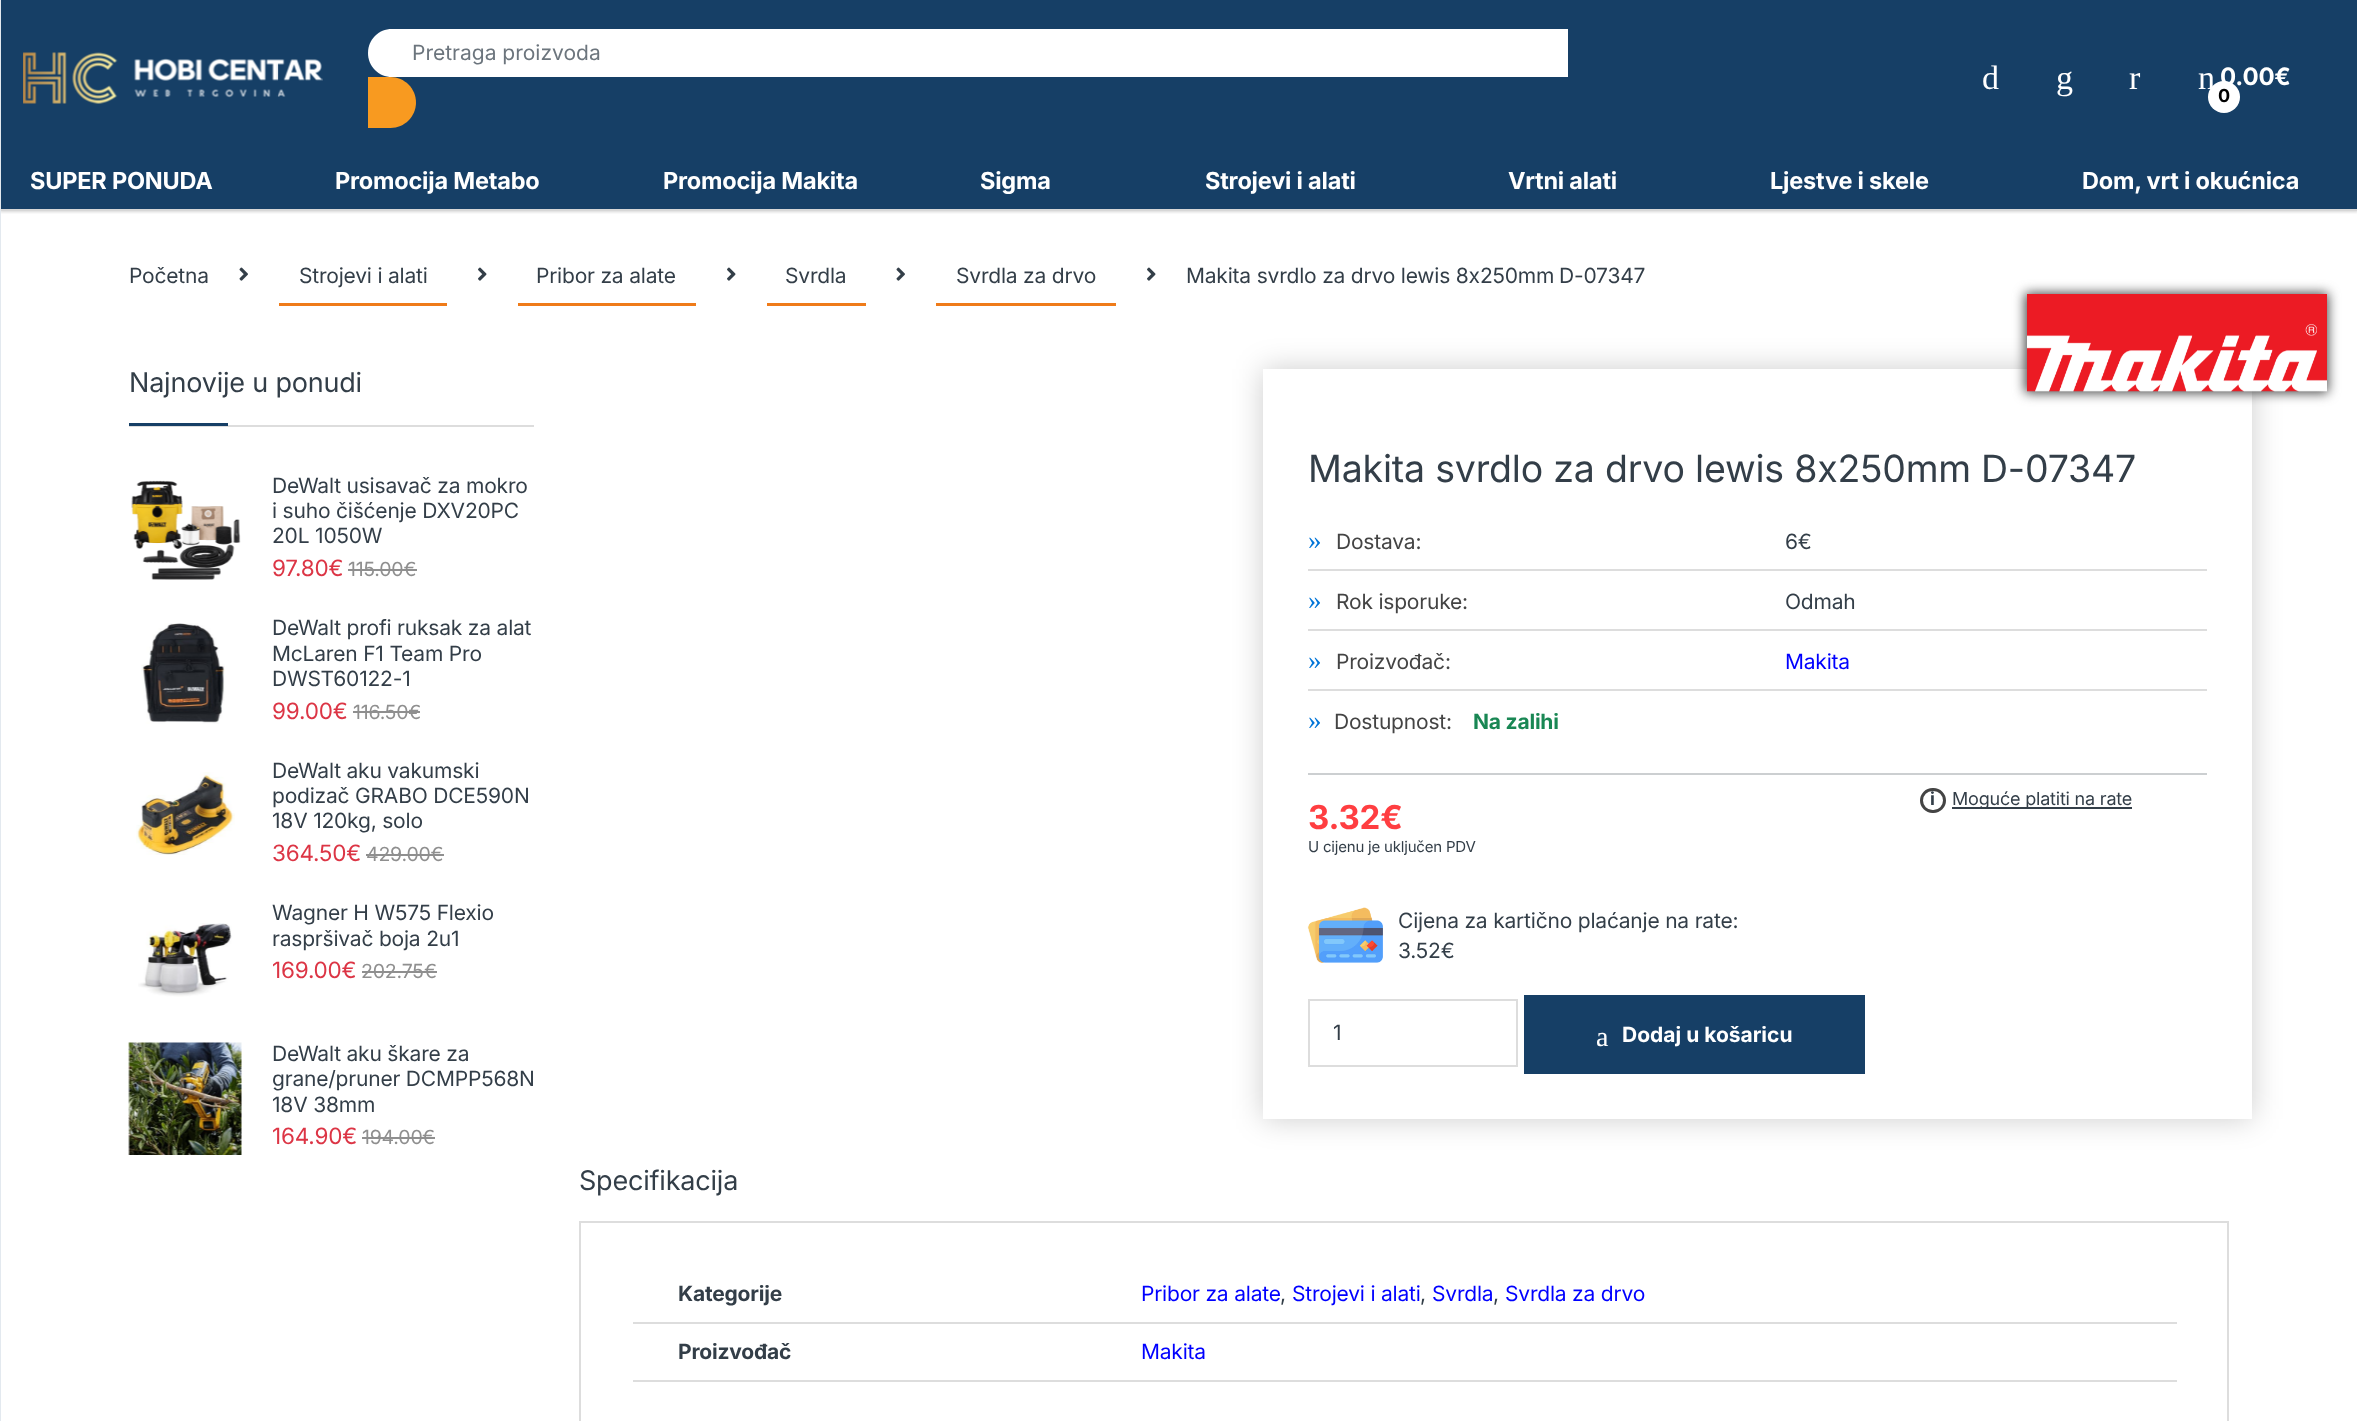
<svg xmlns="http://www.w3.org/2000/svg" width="2357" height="1421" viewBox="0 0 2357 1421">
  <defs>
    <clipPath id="clip1"><rect x="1" y="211" width="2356" height="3"/></clipPath>
    <clipPath id="clip2"><path d="M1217 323H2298V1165H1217ZM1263 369H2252V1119H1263Z" clip-rule="evenodd"/></clipPath>
  </defs>
  <rect width="100%" height="100%" fill="rgb(255,255,255)"/>
  <rect x="1" y="0" width="2356" height="209" fill="rgb(22,63,102)"/>
  <g clip-path="url(#clip1)">
    <rect x="0" y="158" width="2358" height="54" fill="rgba(0,0,0,0.16)" filter="blur(1.5px)"/>
  </g>
  <rect x="0" y="209" width="2357" height="2" fill="rgb(215,215,215)"/>
  <rect x="0" y="0" width="1" height="1421" fill="rgb(227,233,239)"/>
  <image x="23" y="52" width="300" height="52" href="pic1.png"/>
  <path d="M392 29H1568V77H392C378.5 77 368 66.5 368 53C368 39.5 378.5 29 392 29Z" fill="rgb(255,255,255)"/>
  <text x="412" y="60" font-family="Inter" font-size="21" fill="rgb(108,117,125)">Pretraga proizvoda</text>
  <path d="M368 77H390.5C404.5 77 416 88.5 416 102.5C416 116.5 404.5 128 390.5 128H368Z" fill="rgb(248,154,32)"/>
  <g font-family="Liberation Serif" font-size="34" letter-spacing="-0.2" fill="rgb(255,255,255)">
    <text x="1982" y="89">d</text>
    <text x="2056" y="89">g</text>
    <text x="2129" y="89">r</text>
    <text x="2198" y="89">n</text>
  </g>
  <text x="2220" y="85" font-family="Inter" font-size="24" font-weight="bold" letter-spacing="-0.2" fill="rgb(255,255,255)">0.00€</text>
  <circle cx="2224" cy="97" r="16" fill="rgb(255,255,255)"/>
  <text x="2218" y="102" font-family="Inter" font-size="18" font-weight="bold" letter-spacing="-0.2" fill="rgb(0,0,0)">0</text>
  <g font-family="Inter" font-size="23.5" font-weight="bold" letter-spacing="-0.2" fill="rgb(255,255,255)">
    <text x="30" y="189">SUPER PONUDA</text>
    <text x="335" y="189">Promocija Metabo</text>
    <text x="663" y="189">Promocija Makita</text>
    <text x="980" y="189">Sigma</text>
    <text x="1205" y="189">Strojevi i alati</text>
    <text x="1508" y="189">Vrtni alati</text>
    <text x="1770" y="189">Ljestve i skele</text>
    <text x="2082" y="189">Dom, vrt i okućnica</text>
  </g>
  <text x="129" y="283" font-family="Inter" font-size="21" letter-spacing="-0.2" fill="rgb(51,62,72)">Početna</text>
  <image x="239" y="267" width="9" height="14" href="pic2.png"/>
  <rect x="279" y="303" width="168" height="3" fill="rgb(239,123,25)"/>
  <text x="299" y="283" font-family="Inter" font-size="21" letter-spacing="-0.2" fill="rgb(51,62,72)">Strojevi i alati</text>
  <image x="478" y="267" width="9" height="14" href="pic3.png"/>
  <rect x="518" y="303" width="178" height="3" fill="rgb(239,123,25)"/>
  <text x="536" y="283" font-family="Inter" font-size="21" letter-spacing="-0.2" fill="rgb(51,62,72)">Pribor za alate</text>
  <image x="727" y="267" width="9" height="14" href="pic3.png"/>
  <rect x="767" y="303" width="99" height="3" fill="rgb(239,123,25)"/>
  <text x="785" y="283" font-family="Inter" font-size="21" letter-spacing="-0.2" fill="rgb(51,62,72)">Svrdla</text>
  <image x="896" y="267" width="9" height="14" href="pic2.png"/>
  <rect x="936" y="303" width="180" height="3" fill="rgb(239,123,25)"/>
  <text x="956" y="283" font-family="Inter" font-size="21" letter-spacing="-0.2" fill="rgb(51,62,72)">Svrdla za drvo</text>
  <image x="1147" y="267" width="9" height="14" href="pic3.png"/>
  <g font-family="Inter" font-size="21" letter-spacing="-0.2" fill="rgb(51,62,72)">
    <text x="1186" y="283">Makita svrdlo za drvo lewis 8x250mm</text>
    <text x="1559" y="283">D-07347</text>
  </g>
  <rect x="129" y="425" width="405" height="2" fill="rgb(221,221,221)"/>
  <text x="129" y="392" font-family="Inter" font-size="27" letter-spacing="-0.2" fill="rgb(51,62,72)">Najnovije u ponudi</text>
  <rect x="129" y="423" width="99" height="3" fill="rgb(22,63,102)"/>
  <image x="131" y="480" width="110" height="100" href="pic4.png"/>
  <g font-family="Inter" font-size="21" letter-spacing="-0.2" fill="rgb(51,62,72)">
    <text>
      <tspan x="272" y="493">DeWalt usisavač za mokro</tspan>
      <tspan x="272" y="518">i suho čišćenje DXV20PC</tspan>
      <tspan x="272" y="543">20L 1050W</tspan>
    </text>
  </g>
  <text x="272" y="576" font-family="Inter" font-size="22.5" letter-spacing="-0.2" fill="rgb(220,53,69)">97.80€</text>
  <text x="348" y="576" font-family="Inter" font-size="19.5" letter-spacing="-0.2" fill="rgb(143,143,143)">115.00€</text>
  <rect x="348" y="569" width="69" height="2" fill="rgb(143,143,143)"/>
  <image x="141" y="623" width="84" height="101" href="pic5.png"/>
  <g font-family="Inter" font-size="21" letter-spacing="-0.2" fill="rgb(51,62,72)">
    <text>
      <tspan x="272" y="635">DeWalt profi ruksak za alat</tspan>
      <tspan x="272" y="661">McLaren F1 Team Pro</tspan>
      <tspan x="272" y="686">DWST60122-1</tspan>
    </text>
  </g>
  <text x="272" y="719" font-family="Inter" font-size="22.5" letter-spacing="-0.2" fill="rgb(220,53,69)">99.00€</text>
  <text x="353" y="719" font-family="Inter" font-size="19.5" letter-spacing="-0.2" fill="rgb(143,143,143)">116.50€</text>
  <rect x="353" y="711" width="67" height="2" fill="rgb(143,143,143)"/>
  <image x="136" y="772" width="99" height="83" href="pic6.png"/>
  <g font-family="Inter" font-size="21" letter-spacing="-0.2" fill="rgb(51,62,72)">
    <text>
      <tspan x="272" y="778">DeWalt aku vakumski</tspan>
      <tspan x="272" y="803">podizač GRABO DCE590N</tspan>
      <tspan x="272" y="828">18V 120kg, solo</tspan>
    </text>
  </g>
  <text x="272" y="861" font-family="Inter" font-size="22.5" letter-spacing="-0.2" fill="rgb(220,53,69)">364.50€</text>
  <text x="366" y="861" font-family="Inter" font-size="19.5" letter-spacing="-0.2" fill="rgb(143,143,143)">429.00€</text>
  <rect x="366" y="854" width="78" height="2" fill="rgb(143,143,143)"/>
  <image x="138" y="923" width="94" height="74" href="pic7.png"/>
  <g font-family="Inter" font-size="21" letter-spacing="-0.2" fill="rgb(51,62,72)">
    <text>
      <tspan x="272" y="920">Wagner H W575 Flexio</tspan>
      <tspan x="272" y="946">raspršivač boja 2u1</tspan>
    </text>
  </g>
  <text x="272" y="978" font-family="Inter" font-size="22.5" letter-spacing="-0.2" fill="rgb(220,53,69)">169.00€</text>
  <text x="361" y="978" font-family="Inter" font-size="19.5" letter-spacing="-0.2" fill="rgb(143,143,143)">202.75</text>
  <rect x="362" y="971" width="63" height="2" fill="rgb(143,143,143)"/>
  <text x="424" y="978" font-family="Inter" font-size="19.5" letter-spacing="-0.2" fill="rgb(143,143,143)">€</text>
  <rect x="425" y="971" width="12" height="2" fill="rgb(143,143,143)"/>
  <image x="128" y="1042" width="114" height="113" href="pic8.png"/>
  <g font-family="Inter" font-size="21" letter-spacing="-0.2" fill="rgb(51,62,72)">
    <text>
      <tspan x="272" y="1061">DeWalt aku škare za</tspan>
      <tspan x="272" y="1086">grane/pruner DCMPP568N</tspan>
      <tspan x="272" y="1112">18V 38mm</tspan>
    </text>
  </g>
  <text x="272" y="1144" font-family="Inter" font-size="22.5" letter-spacing="-0.2" fill="rgb(220,53,69)">164.90€</text>
  <text x="362" y="1144" font-family="Inter" font-size="19.5" letter-spacing="-0.2" fill="rgb(143,143,143)">194.00</text>
  <rect x="362" y="1137" width="61" height="2" fill="rgb(143,143,143)"/>
  <text x="422" y="1144" font-family="Inter" font-size="19.5" letter-spacing="-0.2" fill="rgb(143,143,143)">€</text>
  <rect x="423" y="1137" width="12" height="2" fill="rgb(143,143,143)"/>
  <g clip-path="url(#clip2)">
    <rect x="1263" y="369" width="989" height="750" fill="rgba(0,0,0,0.2)" filter="blur(15px)"/>
  </g>
  <rect x="2025" y="293" width="303" height="100" fill="rgb(68,68,68)" filter="blur(6px)"/>
  <image x="2027" y="294" width="300" height="98" href="pic9.png"/>
  <g font-family="Inter" font-size="37.5" letter-spacing="-0.2" fill="rgb(51,62,72)">
    <text x="1308" y="482">Makita svrdlo za drvo lewis 8x250mm</text>
    <text x="1981" y="482">D-07347</text>
  </g>
  <rect x="1308" y="569" width="899" height="2" fill="rgb(221,221,221)"/>
  <text x="1308" y="549" font-family="Liberation Serif" font-size="27" letter-spacing="-0.2" fill="rgb(2,117,216)">»</text>
  <text x="1336" y="549" font-family="Inter" font-size="21" letter-spacing="-0.2" fill="rgb(68,68,68)">Dostava:</text>
  <text x="1785" y="549" font-family="Inter" font-size="21" letter-spacing="-0.2" fill="rgb(51,62,72)">6€</text>
  <rect x="1308" y="629" width="899" height="2" fill="rgb(221,221,221)"/>
  <text x="1308" y="609" font-family="Liberation Serif" font-size="27" letter-spacing="-0.2" fill="rgb(2,117,216)">»</text>
  <text x="1336" y="609" font-family="Inter" font-size="21" letter-spacing="-0.2" fill="rgb(68,68,68)">Rok isporuke:</text>
  <text x="1785" y="609" font-family="Inter" font-size="21" letter-spacing="-0.2" fill="rgb(51,62,72)">Odmah</text>
  <rect x="1308" y="689" width="899" height="2" fill="rgb(221,221,221)"/>
  <text x="1308" y="669" font-family="Liberation Serif" font-size="27" letter-spacing="-0.2" fill="rgb(2,117,216)">»</text>
  <text x="1336" y="669" font-family="Inter" font-size="21" letter-spacing="-0.2" fill="rgb(68,68,68)">Proizvođač:</text>
  <text x="1785" y="669" font-family="Inter" font-size="21" letter-spacing="-0.2" fill="rgb(0,0,255)">Makita</text>
  <text x="1308" y="729" font-family="Liberation Serif" font-size="27" letter-spacing="-0.2" fill="rgb(2,117,216)">»</text>
  <text x="1334" y="729" font-family="Inter" font-size="21" letter-spacing="-0.2" fill="rgb(68,68,68)">Dostupnost:</text>
  <text x="1473" y="729" font-family="Inter" font-size="21" font-weight="bold" letter-spacing="-0.2" fill="rgb(25,135,84)">Na zalihi</text>
  <rect x="1308" y="773" width="899" height="2" fill="rgb(204,207,209)"/>
  <rect x="1921.5" y="789.5" width="23" height="22" rx="11" fill="none" stroke="rgb(68,68,68)" stroke-width="3"/>
  <text x="1930" y="805" font-family="Inter" font-size="18" font-weight="bold" letter-spacing="-0.2" fill="rgb(51,62,72)">i</text>
  <rect x="1952" y="807" width="180" height="2" fill="rgb(51,62,72)"/>
  <text x="1952" y="805" font-family="Inter" font-size="18" letter-spacing="-0.2" fill="rgb(51,62,72)">Moguće platiti na rate</text>
  <text x="1308" y="829" font-family="Inter" font-size="33" font-weight="bold" letter-spacing="-0.2" fill="rgb(255,62,65)">3.32€</text>
  <text x="1308" y="852" font-family="Inter" font-size="15" letter-spacing="-0.2" fill="rgb(51,62,72)">U cijenu je uključen PDV</text>
  <image x="1307" y="907" width="76" height="56" href="pic10.png"/>
  <g font-family="Inter" font-size="21" letter-spacing="-0.2" fill="rgb(51,62,72)">
    <text>
      <tspan x="1398" y="928">Cijena za kartično plaćanje na rate:</tspan>
      <tspan x="1398" y="958">3.52€</tspan>
    </text>
  </g>
  <rect x="1309" y="1000" width="208" height="66" fill="none" stroke="rgb(221,221,221)" stroke-width="2"/>
  <text x="1333" y="1040" font-family="Inter" font-size="21" fill="rgb(51,62,72)">1</text>
  <rect x="1524" y="995" width="341" height="79" fill="rgb(22,63,102)"/>
  <text x="1596" y="1046" font-family="Liberation Serif" font-size="28" fill="rgb(255,255,255)">a</text>
  <text x="1622" y="1042" font-family="Inter" font-size="21" font-weight="bold" fill="rgb(255,255,255)">Dodaj u košaricu</text>
  <text x="579" y="1190" font-family="Inter" font-size="27" letter-spacing="-0.2" fill="rgb(51,62,72)">Specifikacija</text>
  <rect x="580" y="1222" width="1648" height="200" fill="none" stroke="rgb(221,221,221)" stroke-width="2"/>
  <text x="678" y="1301" font-family="Inter" font-size="21" font-weight="bold" letter-spacing="-0.2" fill="rgb(51,62,72)">Kategorije</text>
  <rect x="633" y="1322" width="1544" height="2" fill="rgb(221,221,221)"/>
  <text x="1141" y="1301" font-family="Inter" font-size="21" letter-spacing="-0.2" fill="rgb(0,0,255)">Pribor za alate</text>
  <text x="1280" y="1301" font-family="Inter" font-size="21" letter-spacing="-0.2" fill="rgb(51,62,72)">,</text>
  <text x="1292" y="1301" font-family="Inter" font-size="21" letter-spacing="-0.2" fill="rgb(0,0,255)">Strojevi i alati</text>
  <text x="1420" y="1301" font-family="Inter" font-size="21" letter-spacing="-0.2" fill="rgb(51,62,72)">,</text>
  <text x="1432" y="1301" font-family="Inter" font-size="21" letter-spacing="-0.2" fill="rgb(0,0,255)">Svrdla</text>
  <text x="1493" y="1301" font-family="Inter" font-size="21" letter-spacing="-0.2" fill="rgb(51,62,72)">,</text>
  <text x="1505" y="1301" font-family="Inter" font-size="21" letter-spacing="-0.2" fill="rgb(0,0,255)">Svrdla za drvo</text>
  <text x="678" y="1359" font-family="Inter" font-size="21" font-weight="bold" letter-spacing="-0.2" fill="rgb(51,62,72)">Proizvođač</text>
  <rect x="633" y="1380" width="1544" height="2" fill="rgb(221,221,221)"/>
  <text x="1141" y="1359" font-family="Inter" font-size="21" letter-spacing="-0.2" fill="rgb(0,0,255)">Makita</text>
</svg>
